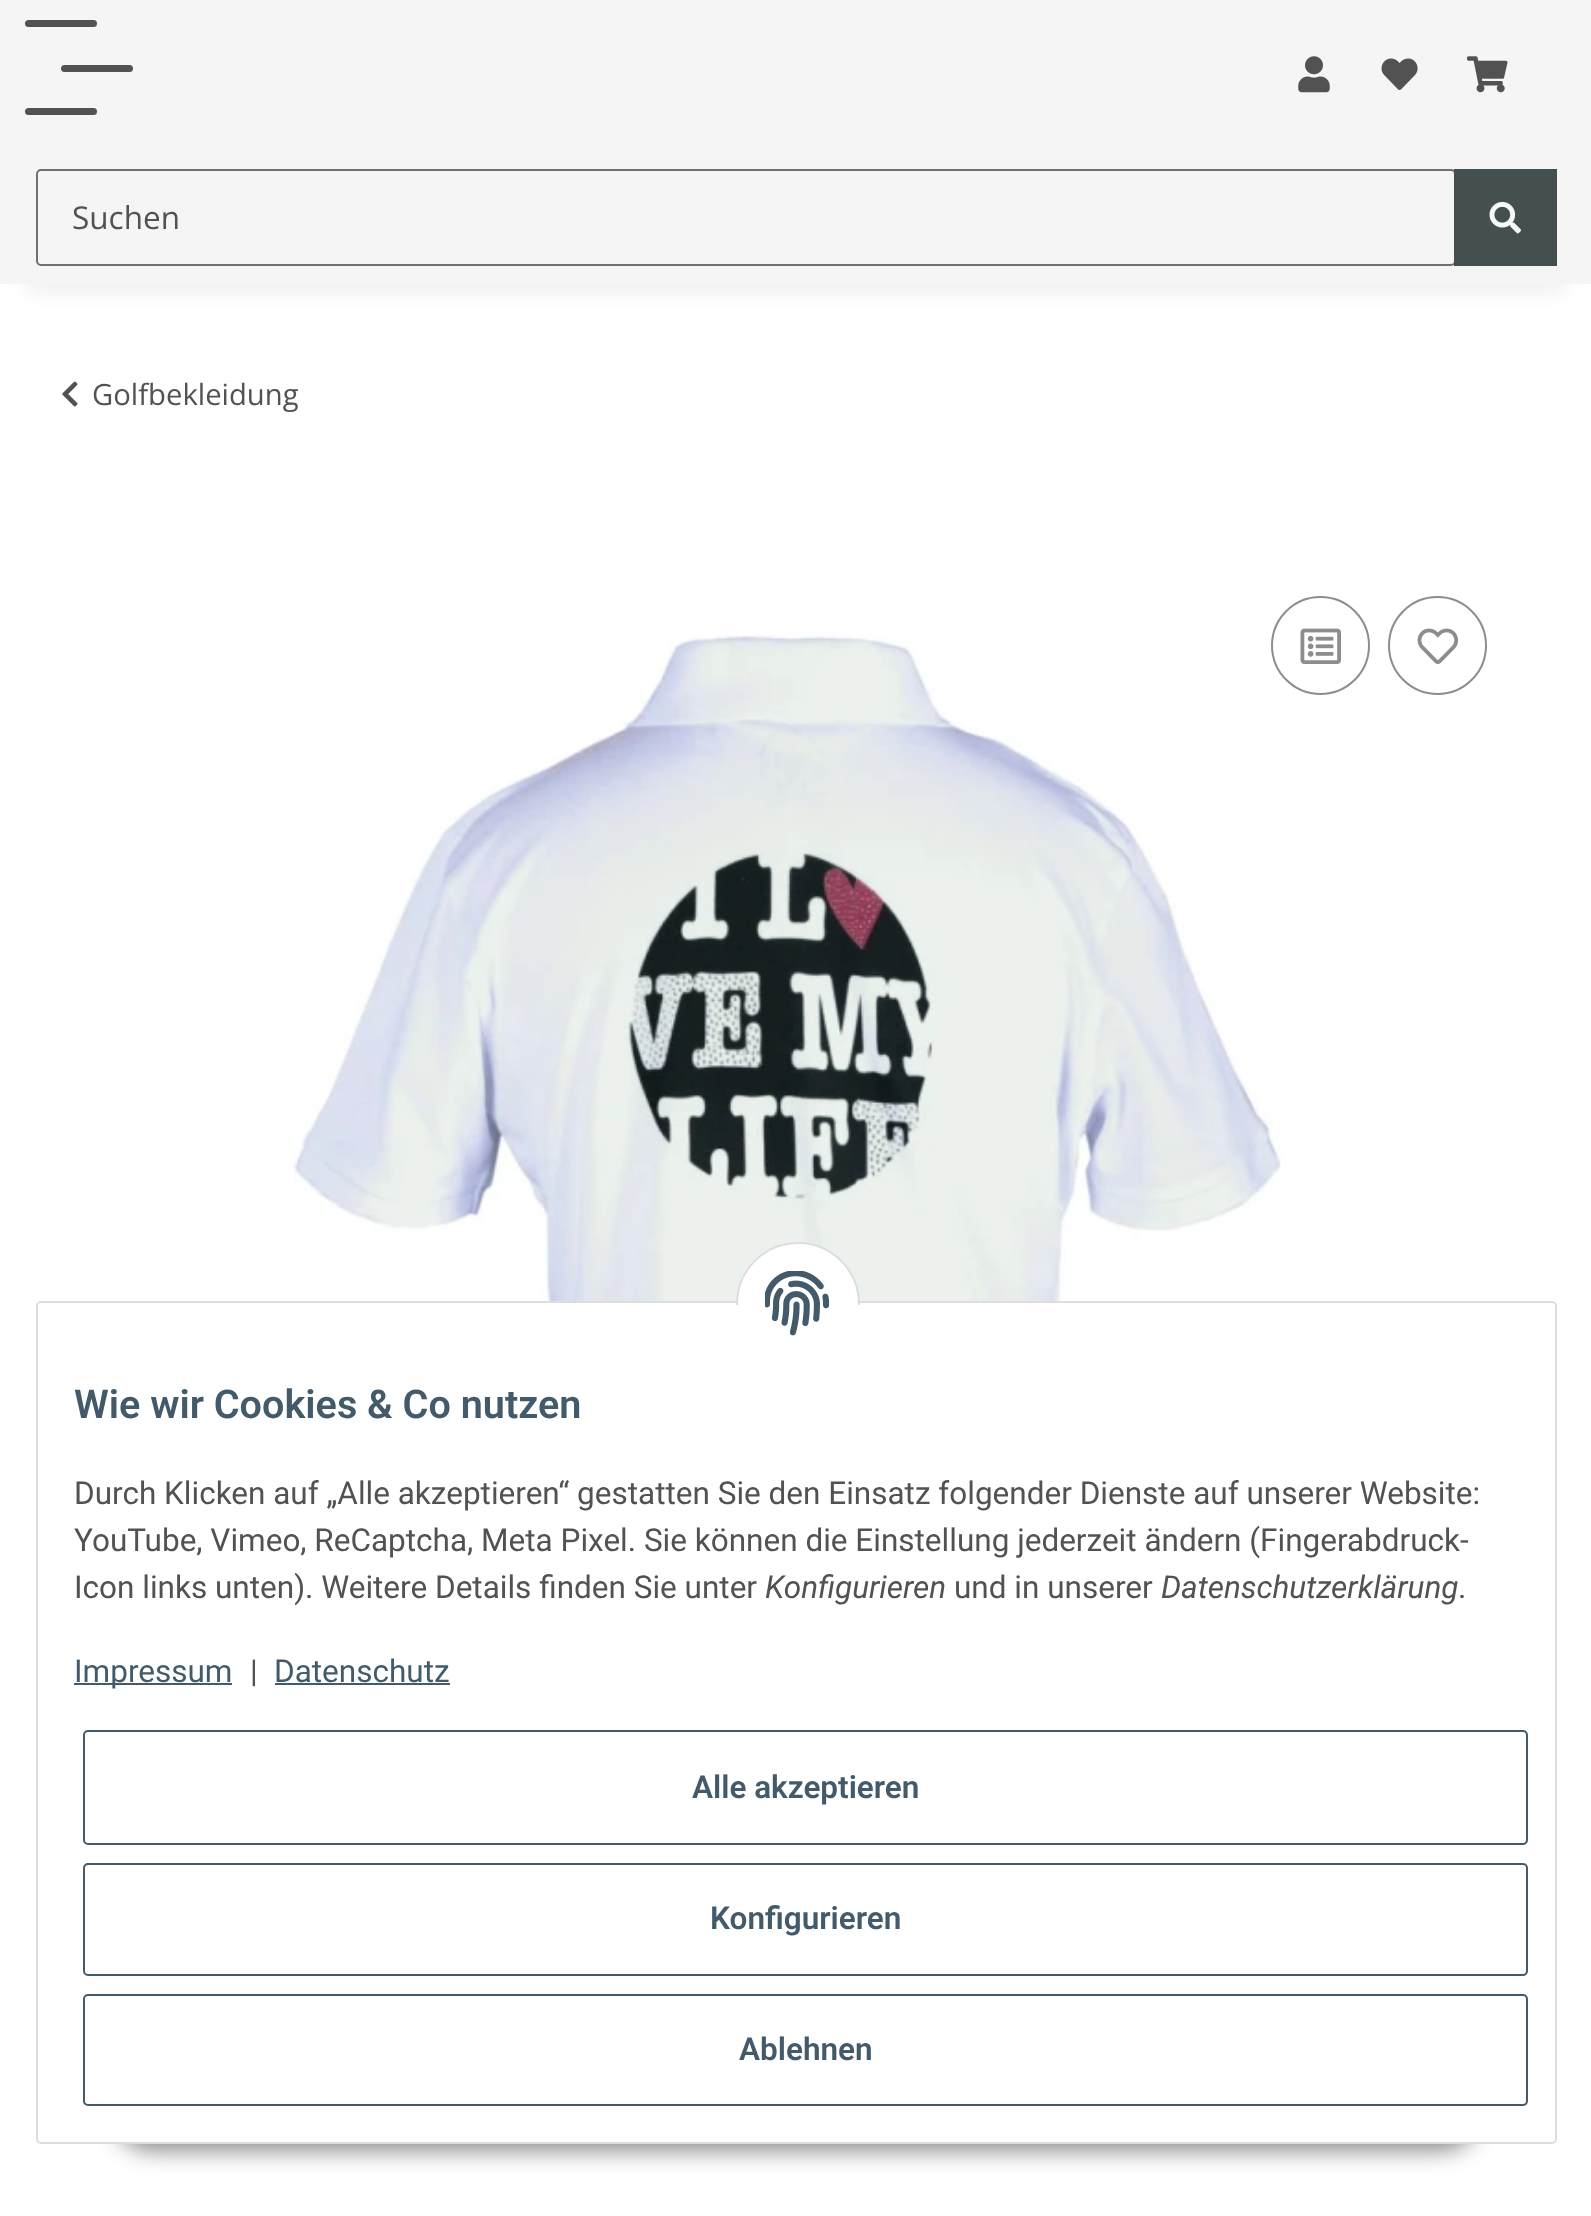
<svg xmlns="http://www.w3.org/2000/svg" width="1591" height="2216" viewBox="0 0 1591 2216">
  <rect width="100%" height="100%" fill="rgb(255,255,255)"/>
  <rect x="27" y="63" width="1539" height="230" fill="rgba(0,0,0,0.06)" filter="blur(10px)"/>
  <rect x="0" y="0" width="1591" height="284" fill="rgb(245,245,245)"/>
  <rect x="61" y="65" width="72" height="7" rx="3.5" fill="rgb(82,82,82)"/>
  <rect x="25" y="20" width="72" height="7" rx="3.5" fill="rgb(82,82,82)"/>
  <rect x="25" y="108" width="72" height="7" rx="3.5" fill="rgb(82,82,82)"/>
  <image x="1298" y="56" width="32" height="37" href="pic1.png"/>
  <image x="1381" y="58" width="37" height="32" href="pic2.png"/>
  <image x="1467" y="56" width="41" height="37" href="pic3.png"/>
  <rect x="37" y="170" width="1418" height="95" rx="4" fill="none" stroke="rgb(112,112,112)" stroke-width="2"/>
  <text x="72" y="229" font-family="Open Sans" font-size="31.5" fill="rgb(82,82,82)">Suchen</text>
  <rect x="1454" y="169" width="103" height="97" fill="rgb(68,79,80)"/>
  <image x="1489" y="201" width="32" height="33" href="pic4.png"/>
  <image x="62" y="381" width="16" height="26" href="pic5.png"/>
  <text x="92" y="405" font-family="Open Sans" font-size="29.25" fill="rgb(82,82,82)">Golfbekleidung</text>
  <image x="292" y="635" width="989" height="666" href="pic6.png"/>
  <circle cx="1320.5" cy="645.5" r="48.5" fill="none" stroke="rgb(141,141,141)" stroke-width="2"/>
  <image x="1300" y="628" width="41" height="36" href="pic7.png"/>
  <circle cx="1437.5" cy="645.5" r="48.5" fill="none" stroke="rgb(141,141,141)" stroke-width="2"/>
  <image x="1417" y="628" width="42" height="36" href="pic8.png"/>
  <rect x="115" y="2079" width="1363" height="72" rx="36" fill="rgba(0,0,0,0.45)" filter="blur(11px)"/>
  <rect x="37" y="1302" width="1519" height="841" rx="4" fill="rgb(255,255,255)" stroke="rgb(221,221,221)" stroke-width="2"/>
  <circle cx="798" cy="1304" r="61" fill="rgb(255,255,255)" stroke="rgb(221,221,221)" stroke-width="2"/>
  <rect x="736" y="1305" width="124" height="61" fill="rgb(255,255,255)"/>
  <image x="765" y="1271" width="65" height="65" href="pic9.png"/>
  <text x="74" y="1418" font-family="Roboto" font-size="39.6" font-weight="600" fill="rgb(67,90,107)">Wie wir Cookies &amp; Co nutzen</text>
  <g font-family="Roboto" font-size="31.5" fill="rgb(82,82,82)">
    <text>
      <tspan x="74" y="1504">Durch Klicken auf „Alle akzeptieren“ gestatten Sie den Einsatz folgender Dienste auf unserer Website:</tspan>
      <tspan x="74" y="1551">YouTube, Vimeo, ReCaptcha, Meta Pixel. Sie können die Einstellung jederzeit ändern (Fingerabdruck-</tspan>
      <tspan x="74" y="1598">Icon links unten). Weitere Details finden Sie unter</tspan>
    </text>
  </g>
  <text x="765" y="1598" font-family="Roboto" font-size="31.5" font-style="italic" fill="rgb(82,82,82)">Konfigurieren</text>
  <text x="954" y="1598" font-family="Roboto" font-size="31.5" fill="rgb(82,82,82)">und in unserer</text>
  <text x="1161" y="1598" font-family="Roboto" font-size="31.5" font-style="italic" fill="rgb(82,82,82)">Datenschutzerklärung</text>
  <text x="1458" y="1598" font-family="Roboto" font-size="31.5" fill="rgb(82,82,82)">.</text>
  <rect x="74" y="1683" width="158" height="2" fill="rgb(67,90,107)"/>
  <text x="74" y="1682" font-family="Roboto" font-size="31.5" fill="rgb(67,90,107)">Impressum</text>
  <text x="250" y="1682" font-family="Roboto" font-size="31.5" fill="rgb(82,82,82)">|</text>
  <text x="274" y="1682" font-family="Roboto" font-size="31.5" fill="rgb(67,90,107)">Datenschutz</text>
  <rect x="275" y="1683" width="175" height="2" fill="rgb(67,90,107)"/>
  <rect x="84" y="1731" width="1443" height="113" rx="4" fill="none" stroke="rgb(67,90,107)" stroke-width="2"/>
  <text x="692" y="1798" font-family="Roboto" font-size="31.5" font-weight="600" fill="rgb(67,90,107)">Alle akzeptieren</text>
  <rect x="84" y="1864" width="1443" height="111" rx="4" fill="none" stroke="rgb(67,90,107)" stroke-width="2"/>
  <text x="710" y="1929" font-family="Roboto" font-size="31.5" font-weight="600" fill="rgb(67,90,107)">Konfigurieren</text>
  <rect x="84" y="1995" width="1443" height="110" rx="4" fill="none" stroke="rgb(67,90,107)" stroke-width="2"/>
  <text x="739" y="2060" font-family="Roboto" font-size="31.5" font-weight="600" fill="rgb(67,90,107)">Ablehnen</text>
</svg>
